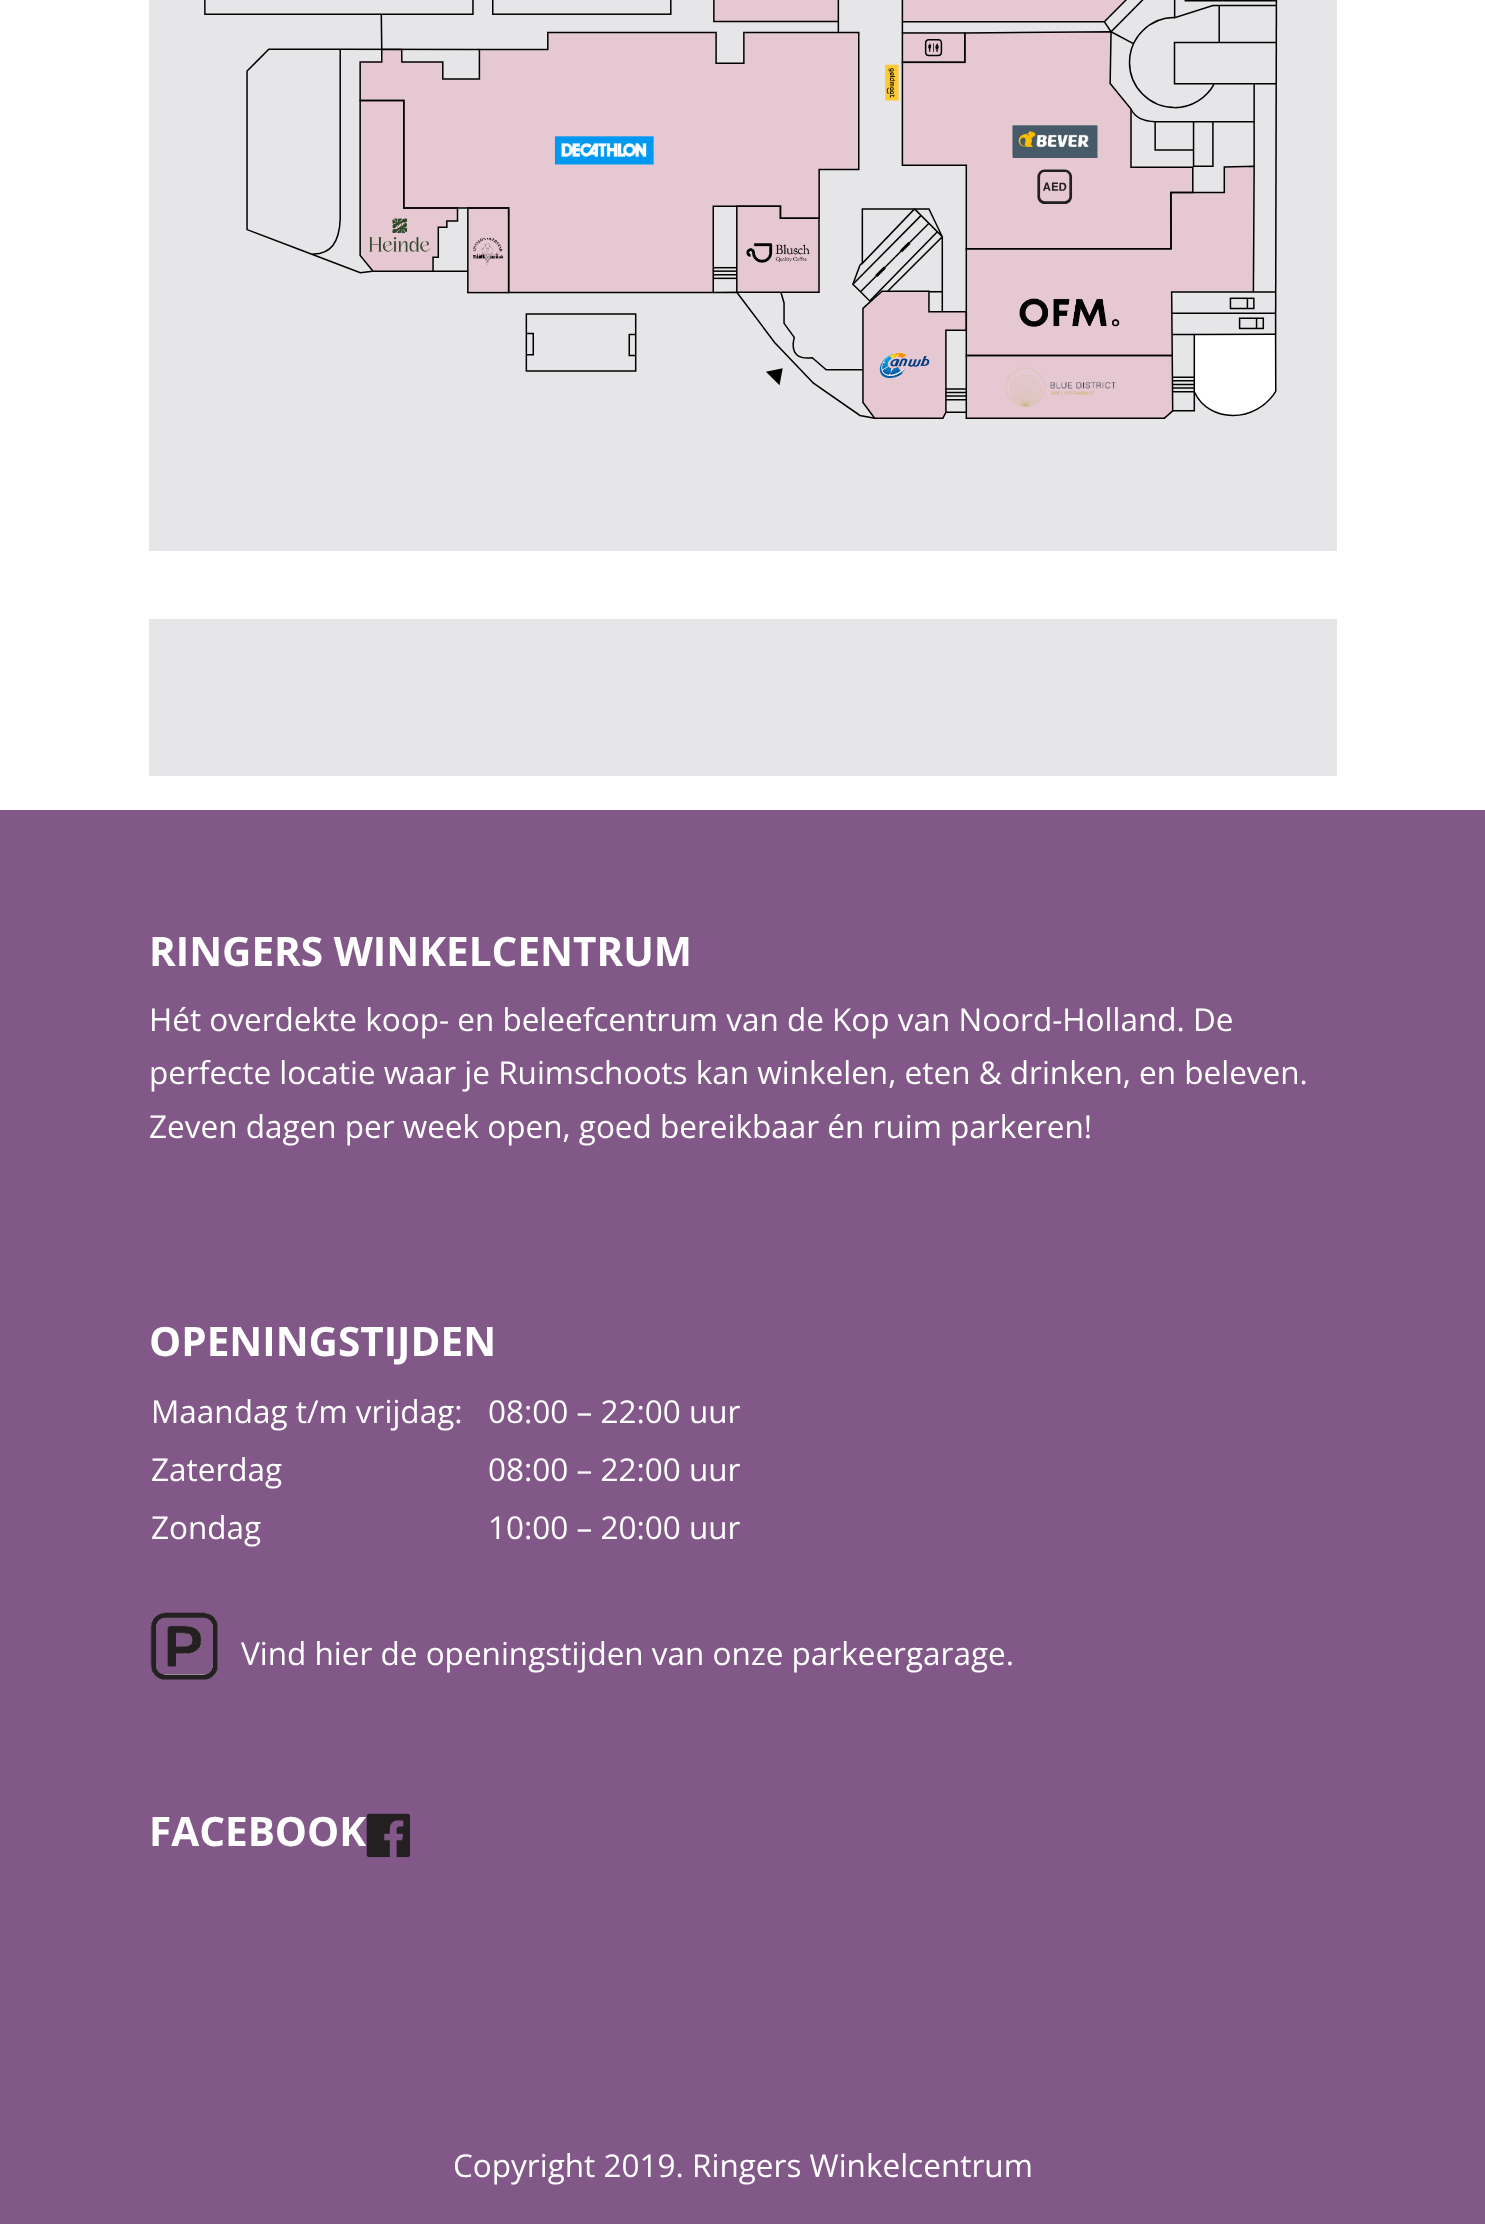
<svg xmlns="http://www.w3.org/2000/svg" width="1485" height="2224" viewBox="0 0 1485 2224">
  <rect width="100%" height="100%" fill="rgb(255,255,255)"/>
  <rect x="149" y="0" width="1188" height="551" fill="rgb(230,230,232)"/>
  <image x="204" y="0" width="1074" height="419" href="pic1.png"/>
  <rect x="149" y="619" width="1188" height="157" fill="rgb(230,230,232)"/>
  <rect x="0" y="810" width="1485" height="1414" fill="rgb(130,88,137)"/>
  <text x="149" y="966" font-family="Open Sans" font-size="40.5" font-weight="bold" fill="rgb(255,255,255)">RINGERS WINKELCENTRUM</text>
  <g font-family="Open Sans" font-size="31.5" fill="rgb(255,255,255)">
    <text>
      <tspan x="149" y="1031">Hét overdekte koop- en beleefcentrum van de Kop van Noord-Holland. De</tspan>
      <tspan x="149" y="1084">perfecte locatie waar je Ruimschoots kan winkelen, eten &amp; drinken, en beleven.</tspan>
      <tspan x="149" y="1138">Zeven dagen per week open, goed bereikbaar én ruim parkeren!</tspan>
    </text>
  </g>
  <text x="149" y="1356" font-family="Open Sans" font-size="40.5" font-weight="bold" fill="rgb(255,255,255)">OPENINGSTIJDEN</text>
  <g font-family="Open Sans" font-size="31.5" fill="rgb(255,255,255)">
    <text x="151" y="1423">Maandag t/m vrijdag:</text>
    <text x="488" y="1423">08:00 – 22:00 uur</text>
    <text x="151" y="1481">Zaterdag</text>
    <text x="488" y="1481">08:00 – 22:00 uur</text>
    <text x="151" y="1539">Zondag</text>
    <text x="488" y="1539">10:00 – 20:00 uur</text>
  </g>
  <image x="150" y="1612" width="69" height="68" href="pic2.png"/>
  <text x="241" y="1665" font-family="Open Sans" font-size="31.5" fill="rgb(255,255,255)">Vind hier de openingstijden van onze parkeergarage.</text>
  <text x="149" y="1846" font-family="Open Sans" font-size="40.5" font-weight="bold" fill="rgb(255,255,255)">FACEBOOK</text>
  <image x="366" y="1813" width="45" height="45" href="pic3.png"/>
  <text x="453" y="2177" font-family="Open Sans" font-size="31.5" fill="rgb(255,255,255)">Copyright 2019. Ringers Winkelcentrum</text>
</svg>
